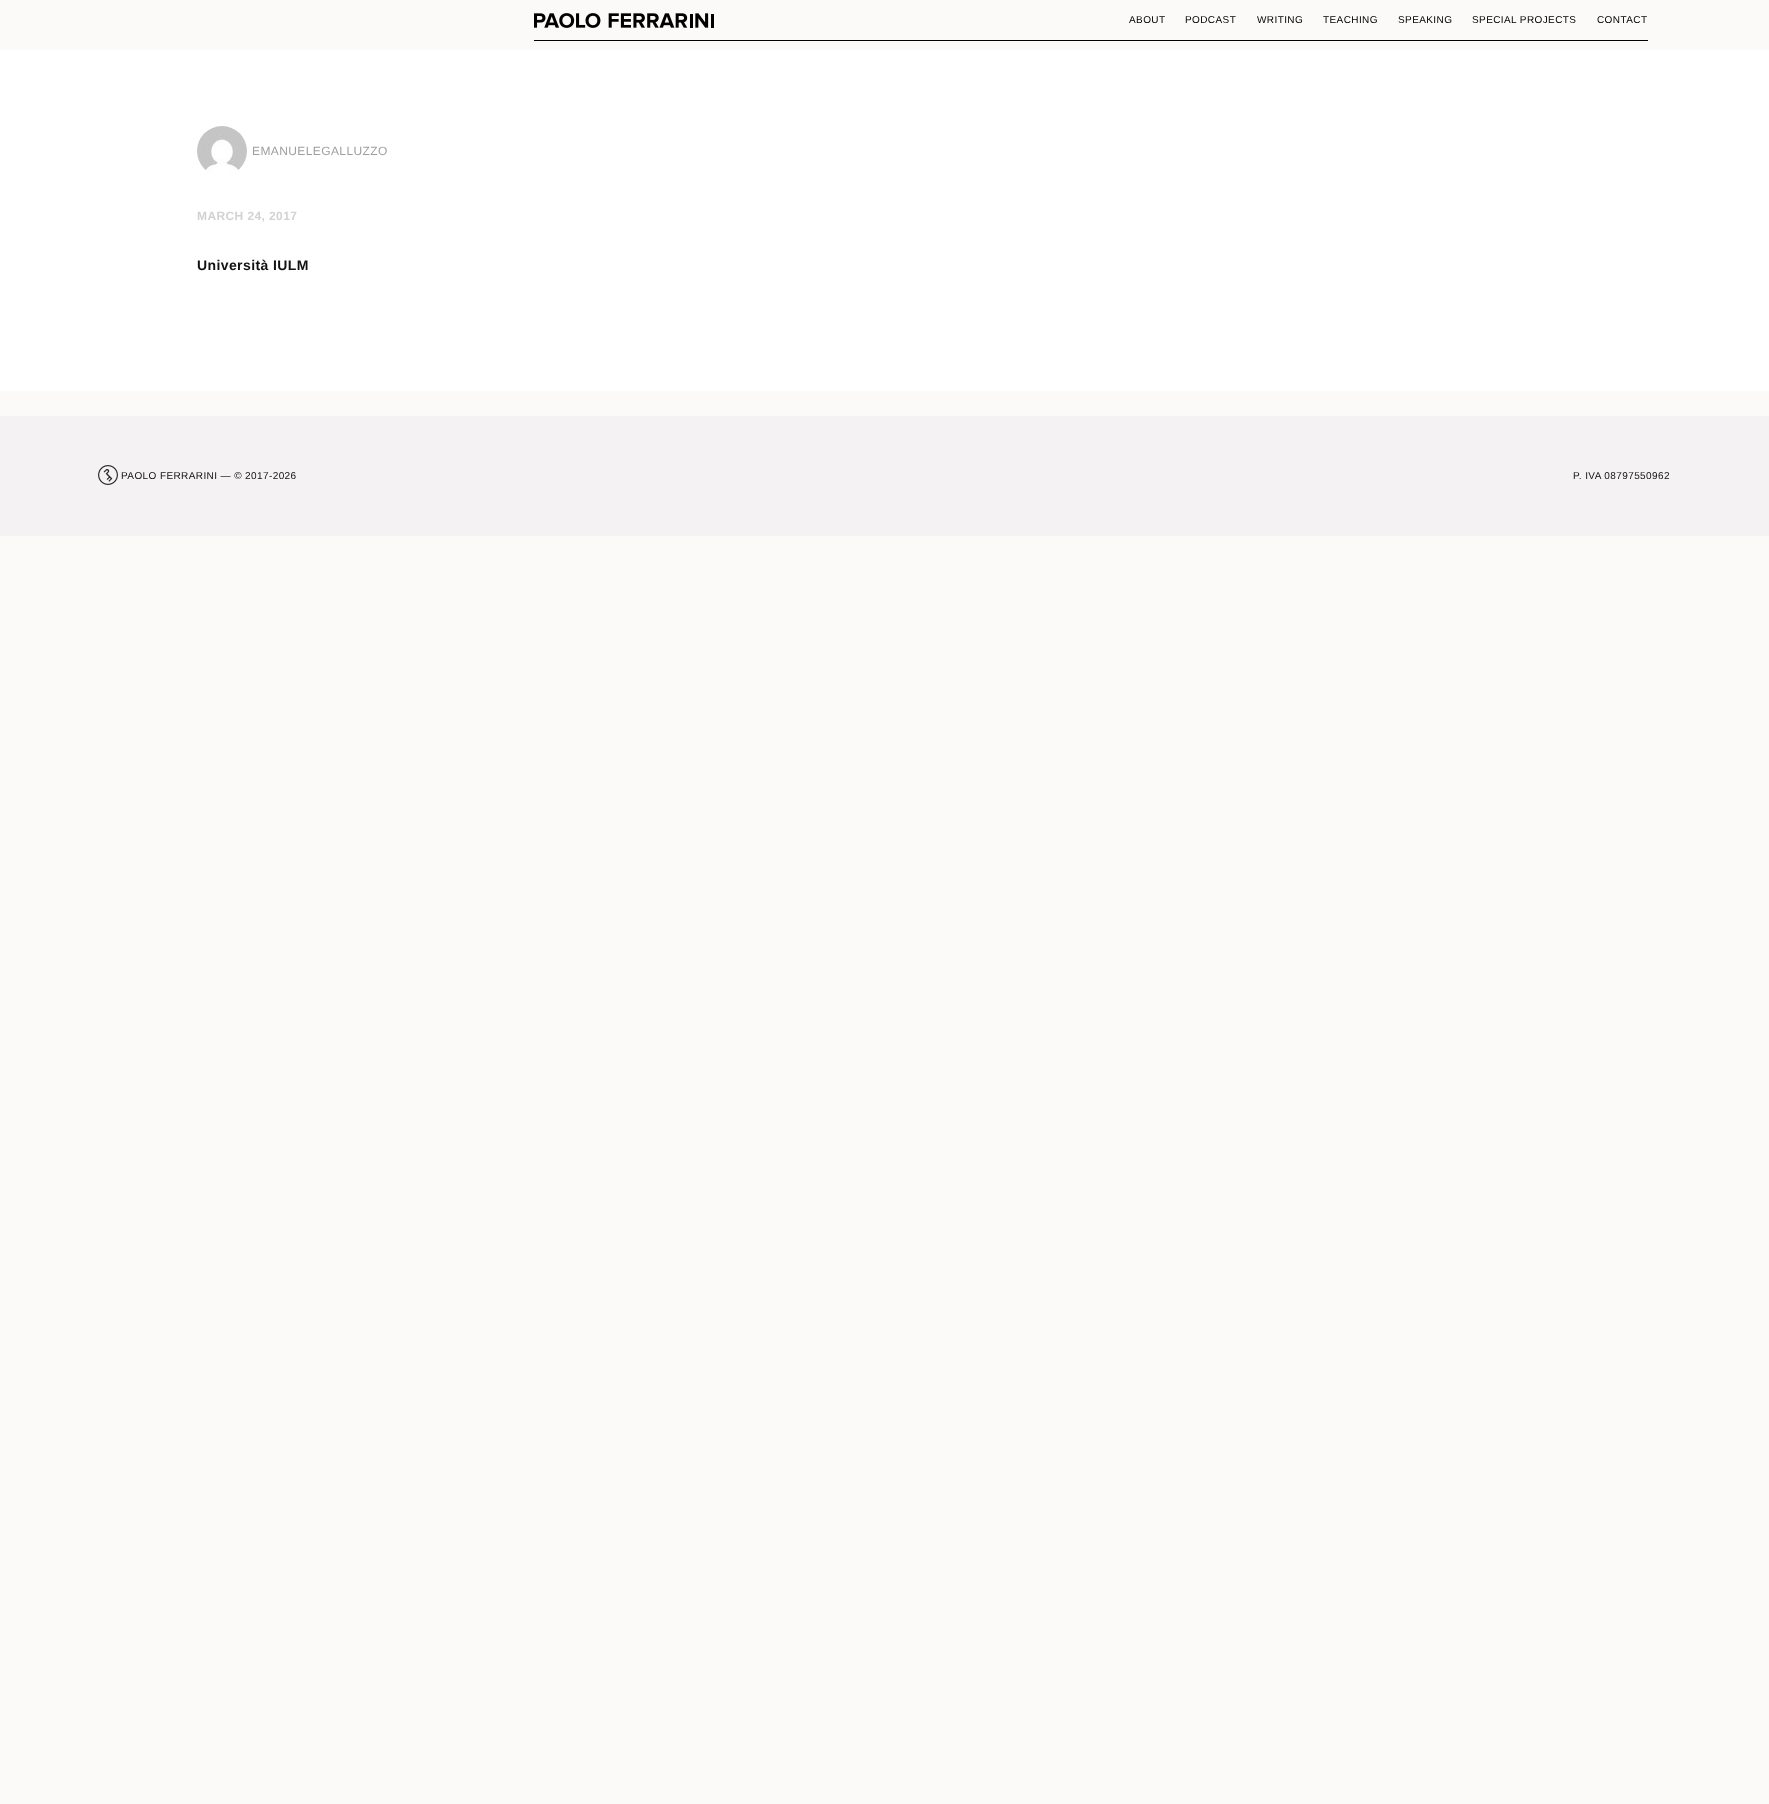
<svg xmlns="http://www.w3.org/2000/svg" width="1769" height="1804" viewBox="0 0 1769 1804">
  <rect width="100%" height="100%" fill="rgb(252,250,249)"/>
  <rect x="534" y="40" width="1114" height="1" fill="rgb(0,0,0)"/>
  <image x="534" y="13" width="180" height="15" href="pic1.png"/>
  <g font-family="Liberation Sans" font-size="10" letter-spacing="0.4" fill="rgb(0,0,0)">
    <text x="1129" y="23">ABOUT</text>
    <text x="1185" y="23">PODCAST</text>
    <text x="1257" y="23">WRITING</text>
    <text x="1323" y="23">TEACHING</text>
    <text x="1398" y="23">SPEAKING</text>
    <text x="1472" y="23">SPECIAL PROJECTS</text>
    <text x="1597" y="23">CONTACT</text>
  </g>
  <rect x="0" y="50" width="1769" height="341" fill="rgb(255,255,255)"/>
  <image x="197" y="126" width="50" height="47" href="pic2.png"/>
  <text x="252" y="155" font-family="Liberation Sans" font-size="12" letter-spacing="0.4" fill="rgb(159,159,159)">EMANUELEGALLUZZO</text>
  <text x="197" y="220" font-family="Liberation Sans" font-size="12" font-weight="bold" letter-spacing="0.4" fill="rgb(210,210,210)">MARCH 24, 2017</text>
  <text x="197" y="270" font-family="Liberation Sans" font-size="14" font-weight="bold" letter-spacing="0.4" fill="rgb(17,17,17)">Università IULM</text>
  <rect x="0" y="416" width="1769" height="120" fill="rgb(244,242,242)"/>
  <image x="98" y="465" width="20" height="20" href="pic3.png"/>
  <g font-family="Liberation Sans" font-size="10" letter-spacing="0.4" fill="rgb(17,17,17)">
    <text x="121" y="479">PAOLO FERRARINI — © 2017-2026</text>
    <text x="1573" y="479">P. IVA 08797550962</text>
  </g>
</svg>
